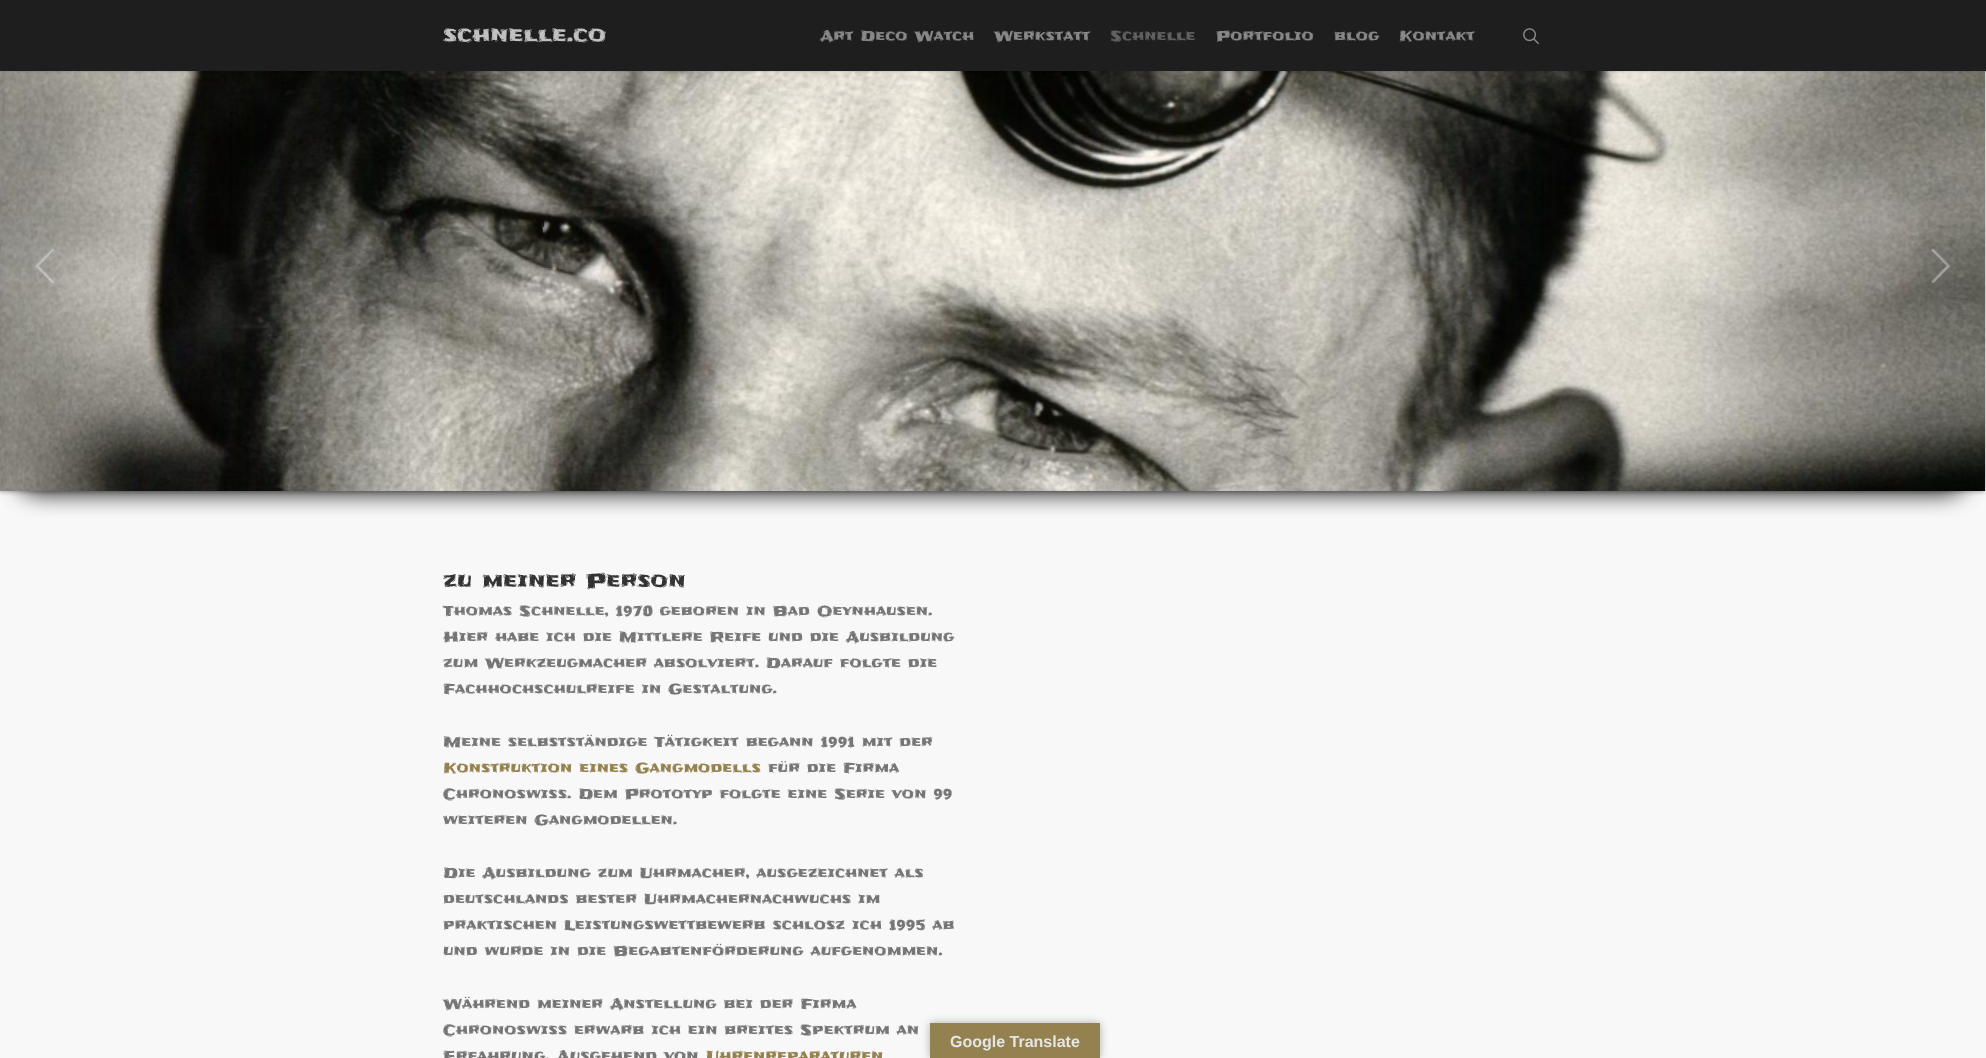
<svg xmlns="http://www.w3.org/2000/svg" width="1986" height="1058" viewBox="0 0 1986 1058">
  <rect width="100%" height="100%" fill="rgb(248,248,248)"/>
  <rect x="-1" y="42" width="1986" height="450" fill="rgba(0,0,0,0.3)" filter="blur(2px)"/>
  <rect x="19" y="176" width="1946" height="315" rx="20" fill="rgba(0,0,0,0.6)" filter="blur(12.5px)"/>
  <rect x="19" y="176" width="1946" height="315" rx="20" fill="rgba(0,0,0,0.6)" filter="blur(12.5px)"/>
  <image x="0" y="71" width="1985" height="420" href="pic3.png"/>
  <rect x="0" y="0" width="1986" height="71" fill="rgba(0,0,0,0.22)" filter="blur(1.5px)"/>
  <rect x="0" y="0" width="1986" height="71" fill="rgb(30,30,30)"/>
  <image x="443" y="28" width="163" height="15" href="pic1.png"/>
  <g font-family="Frijole" font-size="14" fill="rgb(136,136,136)">
    <text x="820" y="41">Art Deco Watch</text>
    <text x="994" y="41">Werkstatt</text>
  </g>
  <text x="1110" y="41" font-family="Frijole" font-size="14" fill="rgb(96,96,96)">Schnelle</text>
  <g font-family="Frijole" font-size="14" fill="rgb(136,136,136)">
    <text x="1216" y="41">Portfolio</text>
    <text x="1334" y="41">blog</text>
    <text x="1399" y="41">Kontakt</text>
  </g>
  <image x="1523" y="28" width="16" height="16" href="pic2.png"/>
  <path d="M53.5 281L54 282C53 285.5 49.5 280.5 49 280L35.5 266.5V265.5L52 249L53 248.5C56 249.5 51.5 253 51 253.5L39 266Z" fill="rgba(255,255,255,0.33)"/>
  <path d="M1932 281L1946.5 266L1934.5 253.5C1934 253 1929.5 249.5 1933 248.5L1933.5 249L1950 265.5V266.5L1936.5 280C1936.5 280.5 1932.5 285.5 1931.5 282Z" fill="rgba(255,255,255,0.33)"/>
  <text x="443" y="588" font-family="Frijole" font-size="20" fill="rgb(51,51,51)">zu meiner Person</text>
  <g font-family="Frijole" font-size="14" fill="rgb(117,117,117)">
    <text>
      <tspan x="443" y="616">Thomas Schnelle, 1970 geboren in Bad Oeynhausen.</tspan>
      <tspan x="443" y="642">Hier habe ich die Mittlere Reife und die Ausbildung</tspan>
      <tspan x="443" y="668">zum Werkzeugmacher absolviert. Darauf folgte die</tspan>
      <tspan x="443" y="694">Fachhochschulreife in Gestaltung.</tspan>
    </text>
    <text x="443" y="747">Meine selbstständige Tätigkeit begann 1991 mit der</text>
  </g>
  <text x="443" y="773" font-family="Frijole" font-size="14" fill="rgb(147,129,79)">Konstruktion eines Gangmodells</text>
  <g font-family="Frijole" font-size="14" fill="rgb(117,117,117)">
    <text x="768" y="773">für die Firma</text>
    <text>
      <tspan x="443" y="799">Chronoswiss. Dem Prototyp folgte eine Serie von 99</tspan>
      <tspan x="443" y="825">weiteren Gangmodellen.</tspan>
    </text>
    <text>
      <tspan x="443" y="878">Die Ausbildung zum Uhrmacher, ausgezeichnet als</tspan>
      <tspan x="443" y="904">deutschlands bester Uhrmachernachwuchs im</tspan>
      <tspan x="443" y="930">praktischen Leistungswettbewerb schlosz ich 1995 ab</tspan>
      <tspan x="443" y="956">und wurde in die Begabtenförderung aufgenommen.</tspan>
    </text>
    <text>
      <tspan x="443" y="1009">Während meiner Anstellung bei der Firma</tspan>
      <tspan x="443" y="1035">Chronoswiss erwarb ich ein breites Spektrum an</tspan>
      <tspan x="443" y="1061">Erfahrung. Ausgehend von</tspan>
    </text>
  </g>
  <text x="706" y="1061" font-family="Frijole" font-size="14" fill="rgb(147,129,79)">Uhrenreparaturen</text>
  <rect x="930" y="1023" width="170" height="35" fill="rgba(0,0,0,0.3)" filter="blur(4.5px)"/>
  <rect x="930" y="1023" width="170" height="35" fill="rgb(147,129,79)"/>
  <text x="950" y="1047" font-family="Liberation Sans" font-size="16" font-weight="bold" fill="rgb(229,229,229)">Google Translate</text>
</svg>
